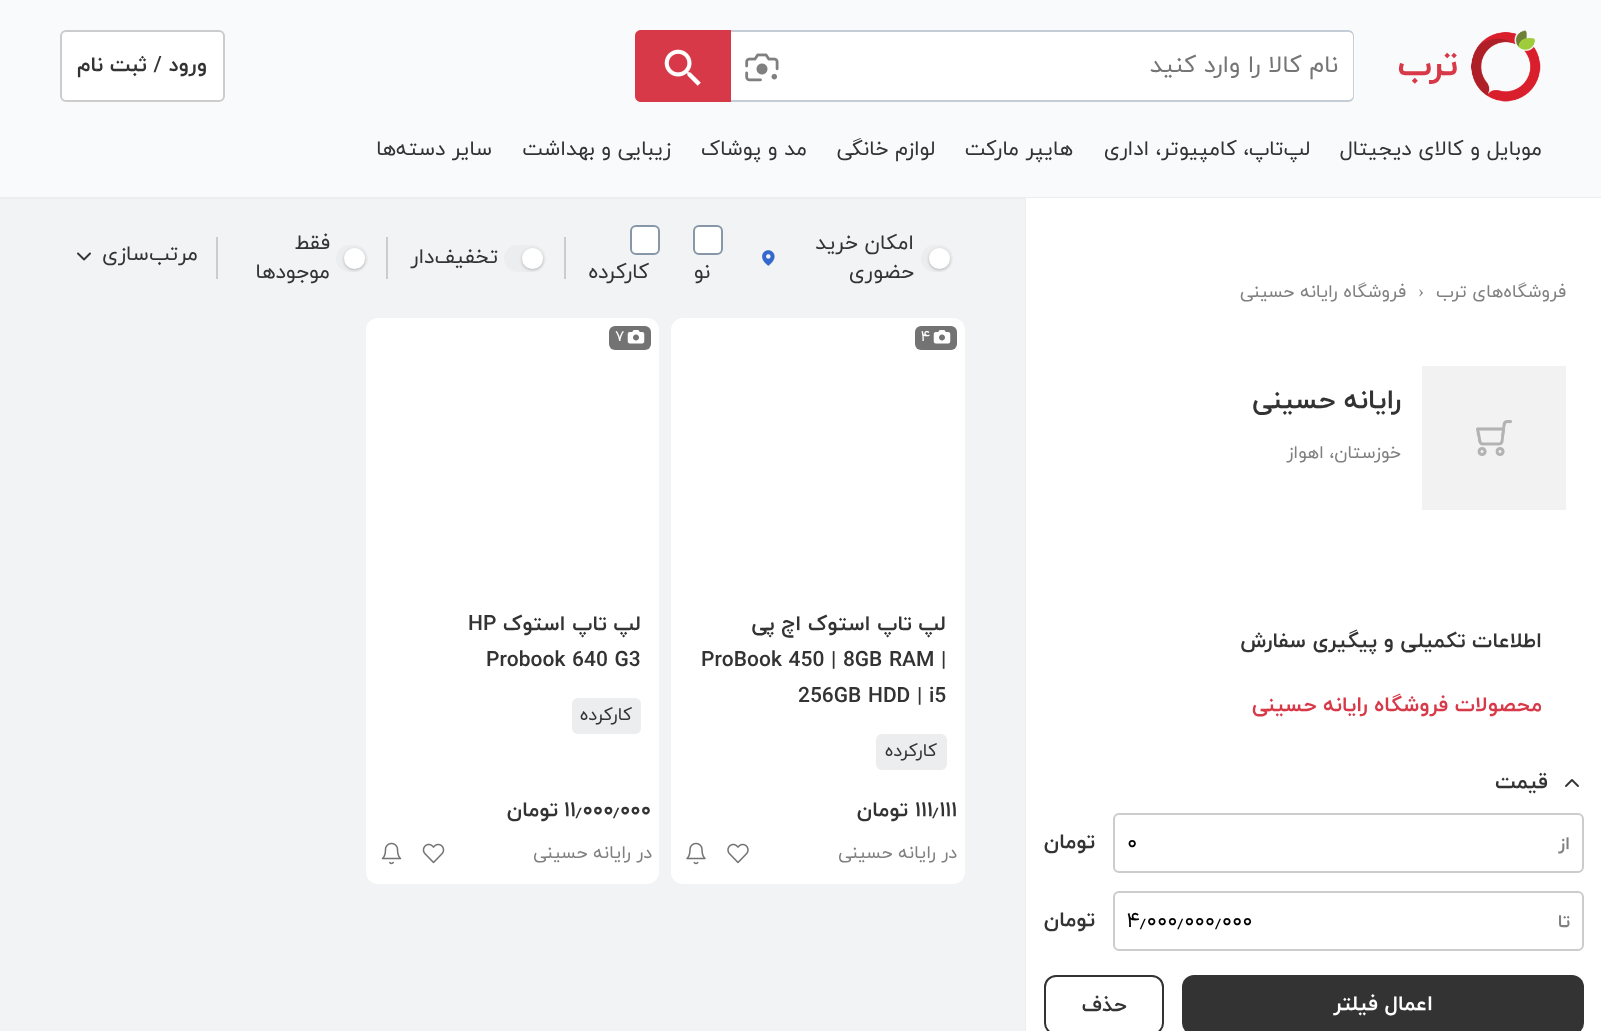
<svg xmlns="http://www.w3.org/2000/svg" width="1601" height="1031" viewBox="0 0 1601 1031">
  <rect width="100%" height="100%" fill="rgb(242,243,245)"/>
  <rect x="0" y="0" width="1601" height="197" fill="rgb(249,250,251)"/>
  <rect x="1025" y="198" width="1" height="833" fill="rgb(236,237,239)"/>
  <rect x="0" y="197" width="1601" height="2" fill="rgb(236,237,239)"/>
  <image x="1471" y="30" width="70" height="72" href="pic1.png"/>
  <text x="1458" y="75" font-family="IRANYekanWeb" font-size="36" font-weight="bold" direction="rtl" fill="rgb(215,57,72)">ترب</text>
  <path d="M731 30H1349C1352.5 30 1355 32.5 1355 36V96C1355 99.5 1352.5 102 1349 102H731Z" fill="rgb(255,255,255)"/>
  <path d="M730 30H1348C1352 30 1354 33 1354 36V96C1354 99 1352 102 1348 102H730ZM730 32H1348C1351 32 1353 34 1353 36V96C1353 98 1351 100 1348 100H730Z" fill="rgb(196,205,213)" fill-rule="evenodd"/>
  <text x="1338" y="72" font-family="IRANYekanWeb" font-size="24" direction="rtl" fill="rgb(117,117,117)">نام کالا را وارد کنید</text>
  <image x="745" y="53" width="34" height="29" href="pic2.png"/>
  <path d="M641 30H731V102H641C637.5 102 635 99.5 635 96V36C635 32.5 637.5 30 641 30Z" fill="rgb(215,57,72)"/>
  <image x="664" y="49" width="37" height="37" href="pic3.png"/>
  <rect x="61" y="31" width="163" height="70" rx="5" fill="rgb(255,255,255)" stroke="rgb(204,204,204)" stroke-width="2"/>
  <text x="207" y="71" font-family="IRANYekanWeb" font-size="21" font-weight="bold" direction="rtl" fill="rgb(51,51,51)">ورود / ثبت نام</text>
  <g font-family="IRANYekanWeb" font-size="21" direction="rtl" fill="rgb(51,51,51)">
    <text x="1542" y="155">موبایل و کالای دیجیتال</text>
    <text x="1310" y="155">لپ‌تاپ، کامپیوتر، اداری</text>
    <text x="1073" y="155">هایپر مارکت</text>
    <text x="935" y="155">لوازم خانگی</text>
    <text x="807" y="155">مد و پوشاک</text>
    <text x="671" y="155">زیبایی و بهداشت</text>
    <text x="492" y="155">سایر دسته‌ها</text>
  </g>
  <rect x="1026" y="198" width="575" height="833" fill="rgb(255,255,255)"/>
  <text x="1566" y="297" font-family="IRANYekanWeb" font-size="18" direction="rtl" fill="rgb(128,128,128)">فروشگاه‌های ترب</text>
  <text x="1418" y="297" font-family="Liberation Serif" font-size="18" fill="rgb(128,128,128)">›</text>
  <text x="1406" y="297" font-family="IRANYekanWeb" font-size="18" direction="rtl" fill="rgb(128,128,128)">فروشگاه رایانه حسینی</text>
  <image x="1422" y="366" width="144" height="144" href="pic4.png"/>
  <text x="1401" y="408" font-family="IRANYekanWeb" font-size="27" font-weight="bold" direction="rtl" fill="rgb(51,51,51)">رایانه حسینی</text>
  <text x="1401" y="458" font-family="IRANYekanWeb" font-size="18" direction="rtl" fill="rgb(128,128,128)">خوزستان، اهواز</text>
  <text x="1542" y="647" font-family="IRANYekanWeb" font-size="21" font-weight="bold" direction="rtl" fill="rgb(51,51,51)">اطلاعات تکمیلی و پیگیری سفارش</text>
  <text x="1542" y="711" font-family="IRANYekanWeb" font-size="21" font-weight="bold" direction="rtl" fill="rgb(215,57,72)">محصولات فروشگاه رایانه حسینی</text>
  <image x="1565" y="779" width="14" height="8" href="pic5.png"/>
  <text x="1548" y="788" font-family="IRANYekanWeb" font-size="21" font-weight="bold" direction="rtl" fill="rgb(51,51,51)">قیمت</text>
  <rect x="1114" y="814" width="469" height="58" rx="5" fill="none" stroke="rgb(204,204,204)" stroke-width="2"/>
  <text x="1570" y="849" font-family="IRANYekanWeb" font-size="18" font-weight="bold" direction="rtl" fill="rgb(128,128,128)">از</text>
  <text x="1127" y="849" font-family="IRANYekanWeb" font-size="21" fill="rgb(0,0,0)">۰</text>
  <text x="1095" y="848" font-family="IRANYekanWeb" font-size="21" font-weight="bold" direction="rtl" fill="rgb(51,51,51)">تومان</text>
  <rect x="1114" y="892" width="469" height="58" rx="5" fill="none" stroke="rgb(204,204,204)" stroke-width="2"/>
  <text x="1570" y="927" font-family="IRANYekanWeb" font-size="18" font-weight="bold" direction="rtl" fill="rgb(128,128,128)">تا</text>
  <text x="1127" y="927" font-family="IRANYekanWeb" font-size="21" fill="rgb(0,0,0)">۴٫۰۰۰٫۰۰۰٫۰۰۰</text>
  <text x="1095" y="926" font-family="IRANYekanWeb" font-size="21" font-weight="bold" direction="rtl" fill="rgb(51,51,51)">تومان</text>
  <rect x="1182" y="975" width="402" height="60" rx="12" fill="rgb(51,51,51)"/>
  <text x="1433" y="1010" font-family="IRANYekanWeb" font-size="21" font-weight="bold" direction="rtl" fill="rgb(255,255,255)">اعمال فیلتر</text>
  <rect x="1045" y="976" width="118" height="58" rx="11" fill="none" stroke="rgb(51,51,51)" stroke-width="2"/>
  <text x="1127" y="1011" font-family="IRANYekanWeb" font-size="21" font-weight="bold" direction="rtl" fill="rgb(51,51,51)">حذف</text>
  <rect x="921" y="245" width="32" height="27" rx="13.5" fill="rgb(236,237,239)"/>
  <rect x="929" y="249" width="21" height="21" rx="10.5" fill="rgba(0,0,0,0.24)" filter="blur(1.5px)"/>
  <circle cx="939.5" cy="258.5" r="10.5" fill="rgb(255,255,255)"/>
  <g font-family="IRANYekanWeb" font-size="21" direction="rtl" fill="rgb(51,51,51)">
    <text>
      <tspan x="914" y="249">امکان خرید</tspan>
      <tspan x="914" y="278">حضوری</tspan>
    </text>
  </g>
  <image x="762" y="250" width="13" height="16" href="pic6.png"/>
  <rect x="564" y="237" width="2" height="42" fill="rgb(204,204,204)"/>
  <rect x="504" y="245" width="42" height="27" rx="13.5" fill="rgb(236,237,239)"/>
  <rect x="522" y="249" width="21" height="21" rx="10.5" fill="rgba(0,0,0,0.24)" filter="blur(1.5px)"/>
  <circle cx="532.5" cy="258.5" r="10.5" fill="rgb(255,255,255)"/>
  <text x="498" y="263" font-family="IRANYekanWeb" font-size="21" direction="rtl" fill="rgb(51,51,51)">تخفیف‌دار</text>
  <rect x="386" y="237" width="2" height="42" fill="rgb(204,204,204)"/>
  <rect x="336" y="245" width="32" height="27" rx="13.5" fill="rgb(236,237,239)"/>
  <rect x="344" y="249" width="21" height="21" rx="10.5" fill="rgba(0,0,0,0.24)" filter="blur(1.5px)"/>
  <circle cx="354.5" cy="258.5" r="10.5" fill="rgb(255,255,255)"/>
  <g font-family="IRANYekanWeb" font-size="21" direction="rtl" fill="rgb(51,51,51)">
    <text>
      <tspan x="330" y="249">فقط</tspan>
      <tspan x="330" y="278">موجودها</tspan>
    </text>
  </g>
  <rect x="216" y="237" width="2" height="42" fill="rgb(204,204,204)"/>
  <text x="198" y="260" font-family="IRANYekanWeb" font-size="21" direction="rtl" fill="rgb(51,51,51)">مرتب‌سازی</text>
  <image x="77" y="252" width="14" height="9" href="pic7.png"/>
  <rect x="694" y="226" width="28" height="28" rx="5" fill="rgb(255,255,255)" stroke="rgb(136,151,168)" stroke-width="2"/>
  <text x="710" y="278" font-family="IRANYekanWeb" font-size="21" direction="rtl" fill="rgb(51,51,51)">نو</text>
  <rect x="631" y="226" width="28" height="28" rx="5" fill="rgb(255,255,255)" stroke="rgb(136,151,168)" stroke-width="2"/>
  <text x="649" y="278" font-family="IRANYekanWeb" font-size="21" direction="rtl" fill="rgb(51,51,51)">کارکرده</text>
  <rect x="671" y="318" width="294" height="566" rx="12" fill="rgb(255,255,255)"/>
  <rect x="915" y="326" width="42" height="24" rx="6" fill="rgb(115,115,115)"/>
  <image x="933" y="330" width="18" height="14" href="pic8.png"/>
  <text x="921" y="341" font-family="IRANYekanWeb" font-size="15" fill="rgb(255,255,255)">۴</text>
  <text x="946" y="630" font-family="IRANYekanWeb" font-size="21" font-weight="bold" direction="rtl" fill="rgb(51,51,51)">لپ تاپ استوک اچ پی</text>
  <g font-family="IRANYekanWeb" font-size="21" font-weight="bold" fill="rgb(51,51,51)">
    <text x="701" y="666">ProBook 450 | 8GB RAM |</text>
    <text x="798" y="702">256GB HDD | i5</text>
  </g>
  <rect x="876" y="734" width="71" height="36" rx="6" fill="rgb(236,237,239)"/>
  <text x="937" y="756" font-family="IRANYekanWeb" font-size="18" direction="rtl" fill="rgb(51,51,51)">کارکرده</text>
  <text x="915" y="816" font-family="IRANYekanWeb" font-size="21" font-weight="bold" fill="rgb(51,51,51)">۱۱۱٫۱۱۱</text>
  <text x="908" y="816" font-family="IRANYekanWeb" font-size="21" font-weight="bold" direction="rtl" fill="rgb(51,51,51)">تومان</text>
  <text x="957" y="858" font-family="IRANYekanWeb" font-size="18" direction="rtl" fill="rgb(128,128,128)">در رایانه حسینی</text>
  <image x="727" y="843" width="22" height="21" href="pic9.png"/>
  <image x="686" y="842" width="20" height="23" href="pic10.png"/>
  <rect x="366" y="318" width="293" height="566" rx="12" fill="rgb(255,255,255)"/>
  <rect x="609" y="326" width="42" height="24" rx="6" fill="rgb(115,115,115)"/>
  <image x="627" y="330" width="18" height="14" href="pic8.png"/>
  <text x="615" y="341" font-family="IRANYekanWeb" font-size="15" fill="rgb(255,255,255)">۷</text>
  <text x="641" y="630" font-family="IRANYekanWeb" font-size="21" font-weight="bold" direction="rtl" fill="rgb(51,51,51)">لپ تاپ استوک</text>
  <g font-family="IRANYekanWeb" font-size="21" font-weight="bold" fill="rgb(51,51,51)">
    <text x="468" y="630">HP</text>
    <text x="486" y="666">Probook 640 G3</text>
  </g>
  <rect x="572" y="698" width="69" height="36" rx="6" fill="rgb(236,237,239)"/>
  <text x="632" y="720" font-family="IRANYekanWeb" font-size="18" direction="rtl" fill="rgb(51,51,51)">کارکرده</text>
  <text x="564" y="816" font-family="IRANYekanWeb" font-size="21" font-weight="bold" fill="rgb(51,51,51)">۱۱٫۰۰۰٫۰۰۰</text>
  <text x="558" y="816" font-family="IRANYekanWeb" font-size="21" font-weight="bold" direction="rtl" fill="rgb(51,51,51)">تومان</text>
  <text x="652" y="858" font-family="IRANYekanWeb" font-size="18" direction="rtl" fill="rgb(128,128,128)">در رایانه حسینی</text>
  <image x="422" y="843" width="23" height="21" href="pic11.png"/>
  <image x="381" y="842" width="21" height="23" href="pic12.png"/>
</svg>
